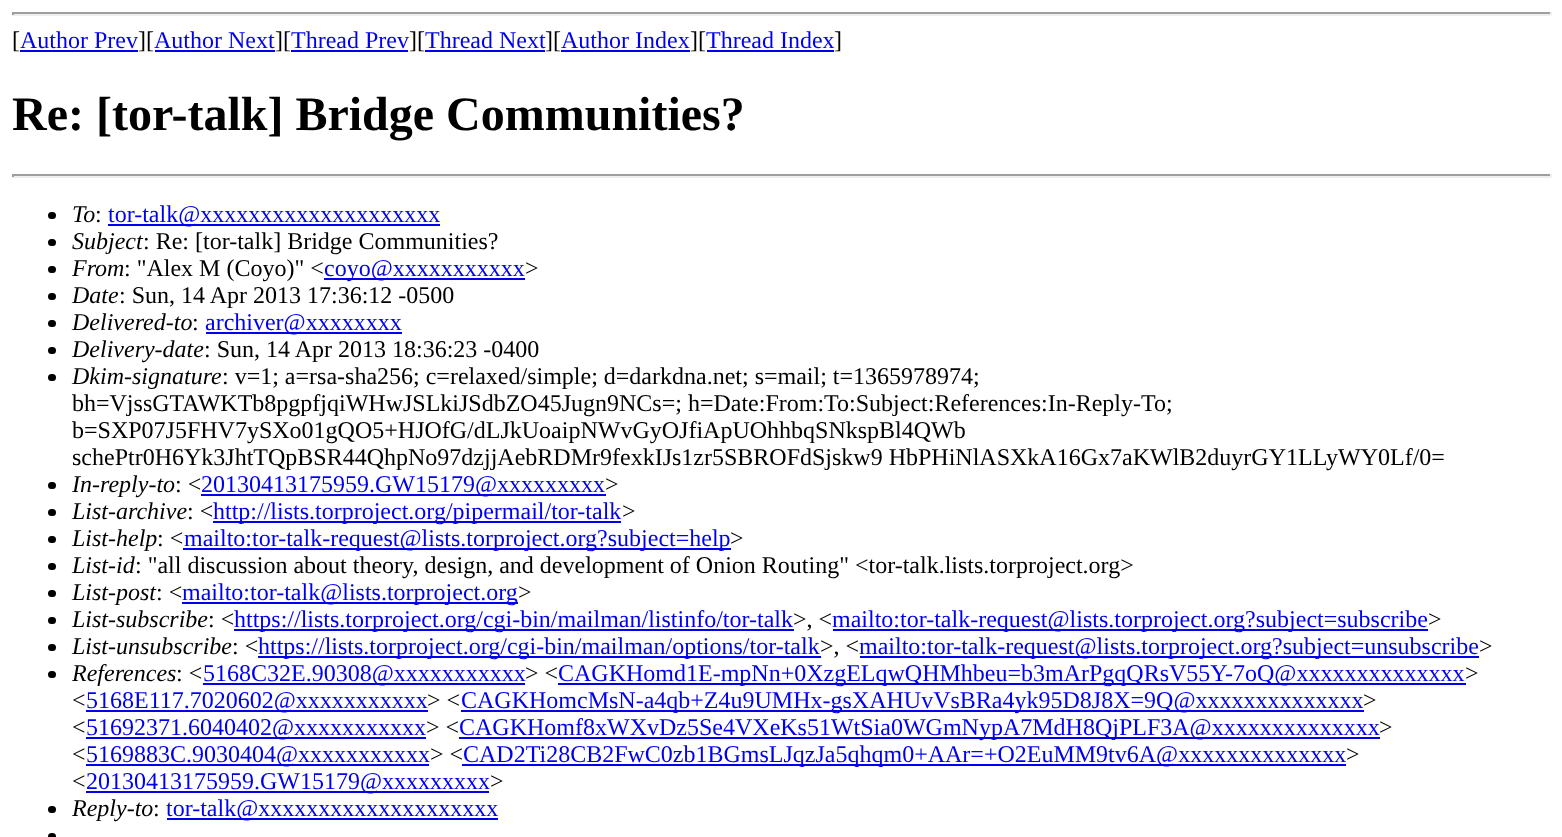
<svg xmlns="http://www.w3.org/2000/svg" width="1562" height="837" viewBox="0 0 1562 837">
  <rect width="100%" height="100%" fill="rgb(255,255,255)"/>
  <rect x="12" y="12" width="1539" height="2" fill="rgb(159,159,159)"/>
  <rect x="1550" y="12" width="2" height="3" fill="rgb(238,238,238)"/>
  <rect x="12" y="14" width="1539" height="2" fill="rgb(238,238,238)"/>
  <rect x="12" y="12" width="2" height="3" fill="rgb(159,159,159)"/>
  <text x="12" y="48" font-family="Liberation Serif" font-size="24" fill="rgb(0,0,0)">[</text>
  <text x="20" y="48" font-family="Liberation Serif" font-size="24" fill="rgb(0,0,238)">Author Prev</text>
  <rect x="20" y="50" width="118" height="2" fill="rgb(0,0,238)"/>
  <text x="138" y="48" font-family="Liberation Serif" font-size="24" fill="rgb(0,0,0)">][</text>
  <text x="154" y="48" font-family="Liberation Serif" font-size="24" fill="rgb(0,0,238)">Author Next</text>
  <rect x="155" y="50" width="120" height="2" fill="rgb(0,0,238)"/>
  <text x="275" y="48" font-family="Liberation Serif" font-size="24" fill="rgb(0,0,0)">][</text>
  <text x="291" y="48" font-family="Liberation Serif" font-size="24" fill="rgb(0,0,238)">Thread Prev</text>
  <rect x="291" y="50" width="117" height="2" fill="rgb(0,0,238)"/>
  <text x="409" y="48" font-family="Liberation Serif" font-size="24" fill="rgb(0,0,0)">][</text>
  <text x="425" y="48" font-family="Liberation Serif" font-size="24" fill="rgb(0,0,238)">Thread Next</text>
  <rect x="425" y="50" width="120" height="2" fill="rgb(0,0,238)"/>
  <text x="545" y="48" font-family="Liberation Serif" font-size="24" fill="rgb(0,0,0)">][</text>
  <text x="561" y="48" font-family="Liberation Serif" font-size="24" fill="rgb(0,0,238)">Author Index</text>
  <rect x="561" y="50" width="129" height="2" fill="rgb(0,0,238)"/>
  <text x="690" y="48" font-family="Liberation Serif" font-size="24" fill="rgb(0,0,0)">][</text>
  <text x="706" y="48" font-family="Liberation Serif" font-size="24" fill="rgb(0,0,238)">Thread Index</text>
  <rect x="707" y="50" width="127" height="2" fill="rgb(0,0,238)"/>
  <text x="834" y="48" font-family="Liberation Serif" font-size="24" fill="rgb(0,0,0)">]</text>
  <text x="12" y="130" font-family="Liberation Serif" font-size="48" font-weight="bold" fill="rgb(0,0,0)">Re: [tor-talk] Bridge Communities?</text>
  <rect x="12" y="174" width="1539" height="2" fill="rgb(159,159,159)"/>
  <rect x="1550" y="174" width="2" height="3" fill="rgb(238,238,238)"/>
  <rect x="12" y="176" width="1539" height="2" fill="rgb(238,238,238)"/>
  <rect x="12" y="174" width="2" height="3" fill="rgb(159,159,159)"/>
  <rect x="48" y="212" width="8" height="7" rx="3.5" fill="rgb(0,0,0)"/>
  <text x="72" y="222" font-family="Liberation Serif" font-size="24" font-style="italic" fill="rgb(0,0,0)">To</text>
  <text x="95" y="222" font-family="Liberation Serif" font-size="24" fill="rgb(0,0,0)">:</text>
  <rect x="108" y="224" width="332" height="2" fill="rgb(0,0,238)"/>
  <text x="108" y="222" font-family="Liberation Serif" font-size="24" fill="rgb(0,0,238)">tor-talk@xxxxxxxxxxxxxxxxxxxx</text>
  <rect x="48" y="239" width="8" height="7" rx="3.5" fill="rgb(0,0,0)"/>
  <text x="72" y="249" font-family="Liberation Serif" font-size="24" font-style="italic" fill="rgb(0,0,0)">Subject</text>
  <text x="143" y="249" font-family="Liberation Serif" font-size="24" fill="rgb(0,0,0)">: Re: [tor-talk] Bridge Communities?</text>
  <rect x="48" y="266" width="8" height="7" rx="3.5" fill="rgb(0,0,0)"/>
  <text x="72" y="276" font-family="Liberation Serif" font-size="24" font-style="italic" fill="rgb(0,0,0)">From</text>
  <text x="124" y="276" font-family="Liberation Serif" font-size="24" fill="rgb(0,0,0)">: "Alex M (Coyo)" &lt;</text>
  <rect x="324" y="278" width="201" height="2" fill="rgb(0,0,238)"/>
  <text x="324" y="276" font-family="Liberation Serif" font-size="24" fill="rgb(0,0,238)">coyo@xxxxxxxxxxx</text>
  <text x="525" y="276" font-family="Liberation Serif" font-size="24" fill="rgb(0,0,0)">&gt;</text>
  <rect x="48" y="293" width="8" height="7" rx="3.5" fill="rgb(0,0,0)"/>
  <text x="72" y="303" font-family="Liberation Serif" font-size="24" font-style="italic" fill="rgb(0,0,0)">Date</text>
  <text x="119" y="303" font-family="Liberation Serif" font-size="24" fill="rgb(0,0,0)">: Sun, 14 Apr 2013 17:36:12 -0500</text>
  <rect x="48" y="320" width="8" height="7" rx="3.5" fill="rgb(0,0,0)"/>
  <text x="72" y="330" font-family="Liberation Serif" font-size="24" font-style="italic" fill="rgb(0,0,0)">Delivered-to</text>
  <text x="192" y="330" font-family="Liberation Serif" font-size="24" fill="rgb(0,0,0)">:</text>
  <rect x="206" y="332" width="196" height="2" fill="rgb(0,0,238)"/>
  <text x="205" y="330" font-family="Liberation Serif" font-size="24" fill="rgb(0,0,238)">archiver@xxxxxxxx</text>
  <rect x="48" y="347" width="8" height="7" rx="3.5" fill="rgb(0,0,0)"/>
  <text x="72" y="357" font-family="Liberation Serif" font-size="24" font-style="italic" fill="rgb(0,0,0)">Delivery-date</text>
  <text x="204" y="357" font-family="Liberation Serif" font-size="24" fill="rgb(0,0,0)">: Sun, 14 Apr 2013 18:36:23 -0400</text>
  <rect x="48" y="374" width="8" height="7" rx="3.5" fill="rgb(0,0,0)"/>
  <text x="72" y="384" font-family="Liberation Serif" font-size="24" font-style="italic" fill="rgb(0,0,0)">Dkim-signature</text>
  <g font-family="Liberation Serif" font-size="24" fill="rgb(0,0,0)">
    <text x="222" y="384">: v=1; a=rsa-sha256; c=relaxed/simple; d=darkdna.net; s=mail; t=1365978974;</text>
    <text>
      <tspan x="72" y="411">bh=VjssGTAWKTb8pgpfjqiWHwJSLkiJSdbZO45Jugn9NCs=; h=Date:From:To:Subject:References:In-Reply-To;</tspan>
      <tspan x="72" y="438">b=SXP07J5FHV7ySXo01gQO5+HJOfG/dLJkUoaipNWvGyOJfiApUOhhbqSNkspBl4QWb</tspan>
      <tspan x="72" y="465">schePtr0H6Yk3JhtTQpBSR44QhpNo97dzjjAebRDMr9fexkIJs1zr5SBROFdSjskw9 HbPHiNlASXkA16Gx7aKWlB2duyrGY1LLyWY0Lf/0=</tspan>
    </text>
  </g>
  <rect x="48" y="482" width="8" height="7" rx="3.5" fill="rgb(0,0,0)"/>
  <text x="72" y="492" font-family="Liberation Serif" font-size="24" font-style="italic" fill="rgb(0,0,0)">In-reply-to</text>
  <text x="175" y="492" font-family="Liberation Serif" font-size="24" fill="rgb(0,0,0)">: &lt;</text>
  <rect x="201" y="494" width="405" height="2" fill="rgb(0,0,238)"/>
  <text x="201" y="492" font-family="Liberation Serif" font-size="24" fill="rgb(0,0,238)">20130413175959.GW15179@xxxxxxxxx</text>
  <text x="605" y="492" font-family="Liberation Serif" font-size="24" fill="rgb(0,0,0)">&gt;</text>
  <rect x="48" y="509" width="8" height="7" rx="3.5" fill="rgb(0,0,0)"/>
  <text x="72" y="519" font-family="Liberation Serif" font-size="24" font-style="italic" fill="rgb(0,0,0)">List-archive</text>
  <text x="187" y="519" font-family="Liberation Serif" font-size="24" fill="rgb(0,0,0)">: &lt;</text>
  <rect x="213" y="521" width="408" height="2" fill="rgb(0,0,238)"/>
  <text x="213" y="519" font-family="Liberation Serif" font-size="24" fill="rgb(0,0,238)">http://lists.torproject.org/pipermail/tor-talk</text>
  <text x="622" y="519" font-family="Liberation Serif" font-size="24" fill="rgb(0,0,0)">&gt;</text>
  <rect x="48" y="536" width="8" height="7" rx="3.5" fill="rgb(0,0,0)"/>
  <text x="72" y="546" font-family="Liberation Serif" font-size="24" font-style="italic" fill="rgb(0,0,0)">List-help</text>
  <text x="157" y="546" font-family="Liberation Serif" font-size="24" fill="rgb(0,0,0)">: &lt;</text>
  <rect x="183" y="548" width="548" height="2" fill="rgb(0,0,238)"/>
  <text x="184" y="546" font-family="Liberation Serif" font-size="24" fill="rgb(0,0,238)">mailto:tor-talk-request@lists.torproject.org?subject=help</text>
  <text x="730" y="546" font-family="Liberation Serif" font-size="24" fill="rgb(0,0,0)">&gt;</text>
  <rect x="48" y="563" width="8" height="7" rx="3.5" fill="rgb(0,0,0)"/>
  <text x="72" y="573" font-family="Liberation Serif" font-size="24" font-style="italic" fill="rgb(0,0,0)">List-id</text>
  <text x="135" y="573" font-family="Liberation Serif" font-size="24" fill="rgb(0,0,0)">: "all discussion about theory, design, and development of Onion Routing" &lt;tor-talk.lists.torproject.org&gt;</text>
  <rect x="48" y="590" width="8" height="7" rx="3.5" fill="rgb(0,0,0)"/>
  <text x="72" y="600" font-family="Liberation Serif" font-size="24" font-style="italic" fill="rgb(0,0,0)">List-post</text>
  <text x="156" y="600" font-family="Liberation Serif" font-size="24" fill="rgb(0,0,0)">: &lt;</text>
  <rect x="182" y="602" width="336" height="2" fill="rgb(0,0,238)"/>
  <text x="182" y="600" font-family="Liberation Serif" font-size="24" fill="rgb(0,0,238)">mailto:tor-talk@lists.torproject.org</text>
  <text x="518" y="600" font-family="Liberation Serif" font-size="24" fill="rgb(0,0,0)">&gt;</text>
  <rect x="48" y="617" width="8" height="7" rx="3.5" fill="rgb(0,0,0)"/>
  <text x="72" y="627" font-family="Liberation Serif" font-size="24" font-style="italic" fill="rgb(0,0,0)">List-subscribe</text>
  <text x="208" y="627" font-family="Liberation Serif" font-size="24" fill="rgb(0,0,0)">: &lt;</text>
  <rect x="234" y="629" width="560" height="2" fill="rgb(0,0,238)"/>
  <text x="234" y="627" font-family="Liberation Serif" font-size="24" fill="rgb(0,0,238)">https://lists.torproject.org/cgi-bin/mailman/listinfo/tor-talk</text>
  <text x="793" y="627" font-family="Liberation Serif" font-size="24" fill="rgb(0,0,0)">&gt;, &lt;</text>
  <rect x="833" y="629" width="595" height="2" fill="rgb(0,0,238)"/>
  <text x="832" y="627" font-family="Liberation Serif" font-size="24" fill="rgb(0,0,238)">mailto:tor-talk-request@lists.torproject.org?subject=subscribe</text>
  <text x="1428" y="627" font-family="Liberation Serif" font-size="24" fill="rgb(0,0,0)">&gt;</text>
  <rect x="48" y="644" width="8" height="7" rx="3.5" fill="rgb(0,0,0)"/>
  <text x="72" y="654" font-family="Liberation Serif" font-size="24" font-style="italic" fill="rgb(0,0,0)">List-unsubscribe</text>
  <text x="232" y="654" font-family="Liberation Serif" font-size="24" fill="rgb(0,0,0)">: &lt;</text>
  <rect x="258" y="656" width="563" height="2" fill="rgb(0,0,238)"/>
  <text x="258" y="654" font-family="Liberation Serif" font-size="24" fill="rgb(0,0,238)">https://lists.torproject.org/cgi-bin/mailman/options/tor-talk</text>
  <text x="820" y="654" font-family="Liberation Serif" font-size="24" fill="rgb(0,0,0)">&gt;, &lt;</text>
  <rect x="860" y="656" width="619" height="2" fill="rgb(0,0,238)"/>
  <text x="859" y="654" font-family="Liberation Serif" font-size="24" fill="rgb(0,0,238)">mailto:tor-talk-request@lists.torproject.org?subject=unsubscribe</text>
  <text x="1479" y="654" font-family="Liberation Serif" font-size="24" fill="rgb(0,0,0)">&gt;</text>
  <rect x="48" y="671" width="8" height="7" rx="3.5" fill="rgb(0,0,0)"/>
  <text x="72" y="681" font-family="Liberation Serif" font-size="24" font-style="italic" fill="rgb(0,0,0)">References</text>
  <text x="176" y="681" font-family="Liberation Serif" font-size="24" fill="rgb(0,0,0)">: &lt;</text>
  <rect x="203" y="683" width="322" height="2" fill="rgb(0,0,238)"/>
  <text x="203" y="681" font-family="Liberation Serif" font-size="24" fill="rgb(0,0,238)">5168C32E.90308@xxxxxxxxxxx</text>
  <text x="525" y="681" font-family="Liberation Serif" font-size="24" fill="rgb(0,0,0)">&gt; &lt;</text>
  <rect x="558" y="683" width="908" height="2" fill="rgb(0,0,238)"/>
  <text x="558" y="681" font-family="Liberation Serif" font-size="24" fill="rgb(0,0,238)">CAGKHomd1E-mpNn+0XzgELqwQHMhbeu=b3mArPgqQRsV55Y-7oQ@xxxxxxxxxxxxxx</text>
  <g font-family="Liberation Serif" font-size="24" fill="rgb(0,0,0)">
    <text x="1465" y="681">&gt;</text>
    <text x="72" y="708">&lt;</text>
  </g>
  <rect x="86" y="710" width="342" height="2" fill="rgb(0,0,238)"/>
  <text x="86" y="708" font-family="Liberation Serif" font-size="24" fill="rgb(0,0,238)">5168E117.7020602@xxxxxxxxxxx</text>
  <text x="427" y="708" font-family="Liberation Serif" font-size="24" fill="rgb(0,0,0)">&gt; &lt;</text>
  <rect x="461" y="710" width="903" height="2" fill="rgb(0,0,238)"/>
  <text x="461" y="708" font-family="Liberation Serif" font-size="24" fill="rgb(0,0,238)">CAGKHomcMsN-a4qb+Z4u9UMHx-gsXAHUvVsBRa4yk95D8J8X=9Q@xxxxxxxxxxxxxx</text>
  <g font-family="Liberation Serif" font-size="24" fill="rgb(0,0,0)">
    <text x="1363" y="708">&gt;</text>
    <text x="72" y="735">&lt;</text>
  </g>
  <rect x="86" y="737" width="340" height="2" fill="rgb(0,0,238)"/>
  <text x="86" y="735" font-family="Liberation Serif" font-size="24" fill="rgb(0,0,238)">51692371.6040402@xxxxxxxxxxx</text>
  <text x="426" y="735" font-family="Liberation Serif" font-size="24" fill="rgb(0,0,0)">&gt; &lt;</text>
  <rect x="459" y="737" width="921" height="2" fill="rgb(0,0,238)"/>
  <text x="459" y="735" font-family="Liberation Serif" font-size="24" fill="rgb(0,0,238)">CAGKHomf8xWXvDz5Se4VXeKs51WtSia0WGmNypA7MdH8QjPLF3A@xxxxxxxxxxxxxx</text>
  <g font-family="Liberation Serif" font-size="24" fill="rgb(0,0,0)">
    <text x="1379" y="735">&gt;</text>
    <text x="72" y="762">&lt;</text>
  </g>
  <rect x="86" y="764" width="343" height="2" fill="rgb(0,0,238)"/>
  <text x="86" y="762" font-family="Liberation Serif" font-size="24" fill="rgb(0,0,238)">5169883C.9030404@xxxxxxxxxxx</text>
  <text x="430" y="762" font-family="Liberation Serif" font-size="24" fill="rgb(0,0,0)">&gt; &lt;</text>
  <rect x="462" y="764" width="884" height="2" fill="rgb(0,0,238)"/>
  <text x="463" y="762" font-family="Liberation Serif" font-size="24" fill="rgb(0,0,238)">CAD2Ti28CB2FwC0zb1BGmsLJqzJa5qhqm0+AAr=+O2EuMM9tv6A@xxxxxxxxxxxxxx</text>
  <g font-family="Liberation Serif" font-size="24" fill="rgb(0,0,0)">
    <text x="1346" y="762">&gt;</text>
    <text x="72" y="789">&lt;</text>
  </g>
  <rect x="86" y="791" width="403" height="2" fill="rgb(0,0,238)"/>
  <text x="86" y="789" font-family="Liberation Serif" font-size="24" fill="rgb(0,0,238)">20130413175959.GW15179@xxxxxxxxx</text>
  <text x="490" y="789" font-family="Liberation Serif" font-size="24" fill="rgb(0,0,0)">&gt;</text>
  <rect x="48" y="806" width="8" height="7" rx="3.5" fill="rgb(0,0,0)"/>
  <text x="72" y="816" font-family="Liberation Serif" font-size="24" font-style="italic" fill="rgb(0,0,0)">Reply-to</text>
  <text x="153" y="816" font-family="Liberation Serif" font-size="24" fill="rgb(0,0,0)">:</text>
  <rect x="167" y="818" width="331" height="2" fill="rgb(0,0,238)"/>
  <text x="166" y="816" font-family="Liberation Serif" font-size="24" fill="rgb(0,0,238)">tor-talk@xxxxxxxxxxxxxxxxxxxx</text>
  <rect x="48" y="833" width="8" height="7" rx="3.5" fill="rgb(0,0,0)"/>
</svg>
